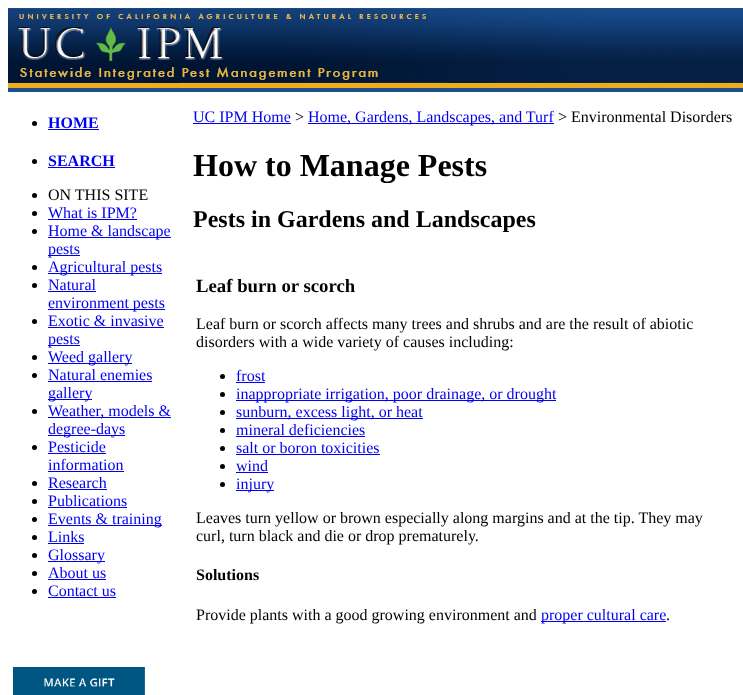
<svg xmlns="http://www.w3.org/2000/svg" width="743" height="695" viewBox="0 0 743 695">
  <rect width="100%" height="100%" fill="rgb(255,255,255)"/>
  <image x="8" y="86" width="735" height="6" href="pic1.png"/>
  <image x="8" y="8" width="735" height="78" href="pic2.png"/>
  <circle cx="34.5" cy="123.5" r="2.5" fill="rgb(0,0,0)"/>
  <text x="48" y="128" font-family="Liberation Serif" font-size="16" font-weight="bold" fill="rgb(0,0,238)">HOME</text>
  <rect x="48" y="129" width="51" height="1" fill="rgb(0,0,238)"/>
  <circle cx="34.5" cy="161.5" r="2.5" fill="rgb(0,0,0)"/>
  <text x="48" y="166" font-family="Liberation Serif" font-size="16" font-weight="bold" fill="rgb(0,0,238)">SEARCH</text>
  <rect x="48" y="167" width="67" height="1" fill="rgb(0,0,238)"/>
  <circle cx="34.5" cy="195.5" r="2.5" fill="rgb(0,0,0)"/>
  <text x="48" y="200" font-family="Liberation Serif" font-size="16" fill="rgb(0,0,0)">ON THIS SITE</text>
  <circle cx="34.5" cy="213.5" r="2.5" fill="rgb(0,0,0)"/>
  <text x="48" y="218" font-family="Liberation Serif" font-size="16" fill="rgb(0,0,238)">What is IPM?</text>
  <rect x="48" y="219" width="89" height="1" fill="rgb(0,0,238)"/>
  <circle cx="34.5" cy="231.5" r="2.5" fill="rgb(0,0,0)"/>
  <rect x="48" y="237" width="123" height="1" fill="rgb(0,0,238)"/>
  <text x="48" y="236" font-family="Liberation Serif" font-size="16" fill="rgb(0,0,238)">Home &amp; landscape</text>
  <rect x="48" y="255" width="32" height="1" fill="rgb(0,0,238)"/>
  <text x="48" y="254" font-family="Liberation Serif" font-size="16" fill="rgb(0,0,238)">pests</text>
  <circle cx="34.5" cy="267.5" r="2.5" fill="rgb(0,0,0)"/>
  <rect x="48" y="273" width="114" height="1" fill="rgb(0,0,238)"/>
  <text x="48" y="272" font-family="Liberation Serif" font-size="16" fill="rgb(0,0,238)">Agricultural pests</text>
  <circle cx="34.5" cy="285.5" r="2.5" fill="rgb(0,0,0)"/>
  <text x="48" y="290" font-family="Liberation Serif" font-size="16" fill="rgb(0,0,238)">Natural</text>
  <rect x="48" y="291" width="48" height="1" fill="rgb(0,0,238)"/>
  <rect x="48" y="309" width="117" height="1" fill="rgb(0,0,238)"/>
  <text x="48" y="308" font-family="Liberation Serif" font-size="16" fill="rgb(0,0,238)">environment pests</text>
  <circle cx="34.5" cy="321.5" r="2.5" fill="rgb(0,0,0)"/>
  <text x="48" y="326" font-family="Liberation Serif" font-size="16" fill="rgb(0,0,238)">Exotic &amp; invasive</text>
  <rect x="48" y="327" width="116" height="1" fill="rgb(0,0,238)"/>
  <rect x="48" y="345" width="32" height="1" fill="rgb(0,0,238)"/>
  <text x="48" y="344" font-family="Liberation Serif" font-size="16" fill="rgb(0,0,238)">pests</text>
  <circle cx="34.5" cy="357.5" r="2.5" fill="rgb(0,0,0)"/>
  <rect x="48" y="363" width="84" height="1" fill="rgb(0,0,238)"/>
  <text x="48" y="362" font-family="Liberation Serif" font-size="16" fill="rgb(0,0,238)">Weed gallery</text>
  <circle cx="34.5" cy="375.5" r="2.5" fill="rgb(0,0,0)"/>
  <text x="48" y="380" font-family="Liberation Serif" font-size="16" fill="rgb(0,0,238)">Natural enemies</text>
  <rect x="48" y="381" width="104" height="1" fill="rgb(0,0,238)"/>
  <rect x="48" y="399" width="44" height="1" fill="rgb(0,0,238)"/>
  <text x="48" y="398" font-family="Liberation Serif" font-size="16" fill="rgb(0,0,238)">gallery</text>
  <circle cx="34.5" cy="411.5" r="2.5" fill="rgb(0,0,0)"/>
  <rect x="48" y="417" width="123" height="1" fill="rgb(0,0,238)"/>
  <text x="48" y="416" font-family="Liberation Serif" font-size="16" fill="rgb(0,0,238)">Weather, models &amp;</text>
  <rect x="48" y="435" width="77" height="1" fill="rgb(0,0,238)"/>
  <text x="48" y="434" font-family="Liberation Serif" font-size="16" fill="rgb(0,0,238)">degree-days</text>
  <circle cx="34.5" cy="447.5" r="2.5" fill="rgb(0,0,0)"/>
  <text x="48" y="452" font-family="Liberation Serif" font-size="16" fill="rgb(0,0,238)">Pesticide</text>
  <rect x="48" y="453" width="58" height="1" fill="rgb(0,0,238)"/>
  <text x="48" y="470" font-family="Liberation Serif" font-size="16" fill="rgb(0,0,238)">information</text>
  <rect x="48" y="471" width="76" height="1" fill="rgb(0,0,238)"/>
  <circle cx="34.5" cy="483.5" r="2.5" fill="rgb(0,0,0)"/>
  <text x="48" y="488" font-family="Liberation Serif" font-size="16" fill="rgb(0,0,238)">Research</text>
  <rect x="48" y="489" width="59" height="1" fill="rgb(0,0,238)"/>
  <circle cx="34.5" cy="501.5" r="2.5" fill="rgb(0,0,0)"/>
  <text x="48" y="506" font-family="Liberation Serif" font-size="16" fill="rgb(0,0,238)">Publications</text>
  <rect x="48" y="507" width="79" height="1" fill="rgb(0,0,238)"/>
  <circle cx="34.5" cy="519.5" r="2.5" fill="rgb(0,0,0)"/>
  <rect x="48" y="525" width="114" height="1" fill="rgb(0,0,238)"/>
  <text x="48" y="524" font-family="Liberation Serif" font-size="16" fill="rgb(0,0,238)">Events &amp; training</text>
  <circle cx="34.5" cy="537.5" r="2.5" fill="rgb(0,0,0)"/>
  <text x="48" y="542" font-family="Liberation Serif" font-size="16" fill="rgb(0,0,238)">Links</text>
  <rect x="48" y="543" width="36" height="1" fill="rgb(0,0,238)"/>
  <circle cx="34.5" cy="555.5" r="2.5" fill="rgb(0,0,0)"/>
  <rect x="48" y="561" width="57" height="1" fill="rgb(0,0,238)"/>
  <text x="48" y="560" font-family="Liberation Serif" font-size="16" fill="rgb(0,0,238)">Glossary</text>
  <circle cx="34.5" cy="573.5" r="2.5" fill="rgb(0,0,0)"/>
  <text x="48" y="578" font-family="Liberation Serif" font-size="16" fill="rgb(0,0,238)">About us</text>
  <rect x="48" y="579" width="58" height="1" fill="rgb(0,0,238)"/>
  <circle cx="34.5" cy="591.5" r="2.5" fill="rgb(0,0,0)"/>
  <text x="48" y="596" font-family="Liberation Serif" font-size="16" fill="rgb(0,0,238)">Contact us</text>
  <rect x="48" y="597" width="68" height="1" fill="rgb(0,0,238)"/>
  <image x="13" y="667" width="132" height="28" href="pic3.png"/>
  <text x="193" y="122" font-family="Liberation Serif" font-size="16" fill="rgb(0,0,238)">UC IPM Home</text>
  <rect x="193" y="123" width="98" height="1" fill="rgb(0,0,238)"/>
  <text x="295" y="122" font-family="Liberation Serif" font-size="16" fill="rgb(0,0,0)">&gt;</text>
  <rect x="308" y="123" width="246" height="1" fill="rgb(0,0,238)"/>
  <text x="308" y="122" font-family="Liberation Serif" font-size="16" fill="rgb(0,0,238)">Home, Gardens, Landscapes, and Turf</text>
  <text x="558" y="122" font-family="Liberation Serif" font-size="16" fill="rgb(0,0,0)">&gt; Environmental Disorders</text>
  <text x="193" y="176" font-family="Liberation Serif" font-size="32" font-weight="bold" fill="rgb(0,0,0)">How to Manage Pests</text>
  <text x="193" y="227" font-family="Liberation Serif" font-size="24" font-weight="bold" fill="rgb(0,0,0)">Pests in Gardens and Landscapes</text>
  <text x="196" y="292" font-family="Liberation Serif" font-size="18.75" font-weight="bold" fill="rgb(0,0,0)">Leaf burn or scorch</text>
  <g font-family="Liberation Serif" font-size="16" fill="rgb(0,0,0)">
    <text>
      <tspan x="196" y="329">Leaf burn or scorch affects many trees and shrubs and are the result of abiotic</tspan>
      <tspan x="196" y="347">disorders with a wide variety of causes including:</tspan>
    </text>
  </g>
  <circle cx="222.5" cy="376.5" r="2.5" fill="rgb(0,0,0)"/>
  <text x="236" y="381" font-family="Liberation Serif" font-size="16" fill="rgb(0,0,238)">frost</text>
  <rect x="236" y="382" width="29" height="1" fill="rgb(0,0,238)"/>
  <circle cx="222.5" cy="394.5" r="2.5" fill="rgb(0,0,0)"/>
  <rect x="236" y="400" width="320" height="1" fill="rgb(0,0,238)"/>
  <text x="236" y="399" font-family="Liberation Serif" font-size="16" fill="rgb(0,0,238)">inappropriate irrigation, poor drainage, or drought</text>
  <circle cx="222.5" cy="412.5" r="2.5" fill="rgb(0,0,0)"/>
  <rect x="236" y="418" width="187" height="1" fill="rgb(0,0,238)"/>
  <text x="236" y="417" font-family="Liberation Serif" font-size="16" fill="rgb(0,0,238)">sunburn, excess light, or heat</text>
  <circle cx="222.5" cy="430.5" r="2.5" fill="rgb(0,0,0)"/>
  <text x="236" y="435" font-family="Liberation Serif" font-size="16" fill="rgb(0,0,238)">mineral deficiencies</text>
  <rect x="236" y="436" width="129" height="1" fill="rgb(0,0,238)"/>
  <circle cx="222.5" cy="448.5" r="2.5" fill="rgb(0,0,0)"/>
  <text x="236" y="453" font-family="Liberation Serif" font-size="16" fill="rgb(0,0,238)">salt or boron toxicities</text>
  <rect x="236" y="454" width="144" height="1" fill="rgb(0,0,238)"/>
  <circle cx="222.5" cy="466.5" r="2.5" fill="rgb(0,0,0)"/>
  <text x="236" y="471" font-family="Liberation Serif" font-size="16" fill="rgb(0,0,238)">wind</text>
  <rect x="236" y="472" width="32" height="1" fill="rgb(0,0,238)"/>
  <circle cx="222.5" cy="484.5" r="2.5" fill="rgb(0,0,0)"/>
  <rect x="236" y="490" width="38" height="1" fill="rgb(0,0,238)"/>
  <text x="236" y="489" font-family="Liberation Serif" font-size="16" fill="rgb(0,0,238)">injury</text>
  <g font-family="Liberation Serif" font-size="16" fill="rgb(0,0,0)">
    <text>
      <tspan x="196" y="523">Leaves turn yellow or brown especially along margins and at the tip. They may</tspan>
      <tspan x="196" y="541">curl, turn black and die or drop prematurely.</tspan>
    </text>
  </g>
  <text x="196" y="580" font-family="Liberation Serif" font-size="16" font-weight="bold" fill="rgb(0,0,0)">Solutions</text>
  <text x="196" y="620" font-family="Liberation Serif" font-size="16" fill="rgb(0,0,0)">Provide plants with a good growing environment and</text>
  <rect x="541" y="621" width="125" height="1" fill="rgb(0,0,238)"/>
  <text x="541" y="620" font-family="Liberation Serif" font-size="16" fill="rgb(0,0,238)">proper cultural care</text>
  <text x="666" y="620" font-family="Liberation Serif" font-size="16" fill="rgb(0,0,0)">.</text>
</svg>
